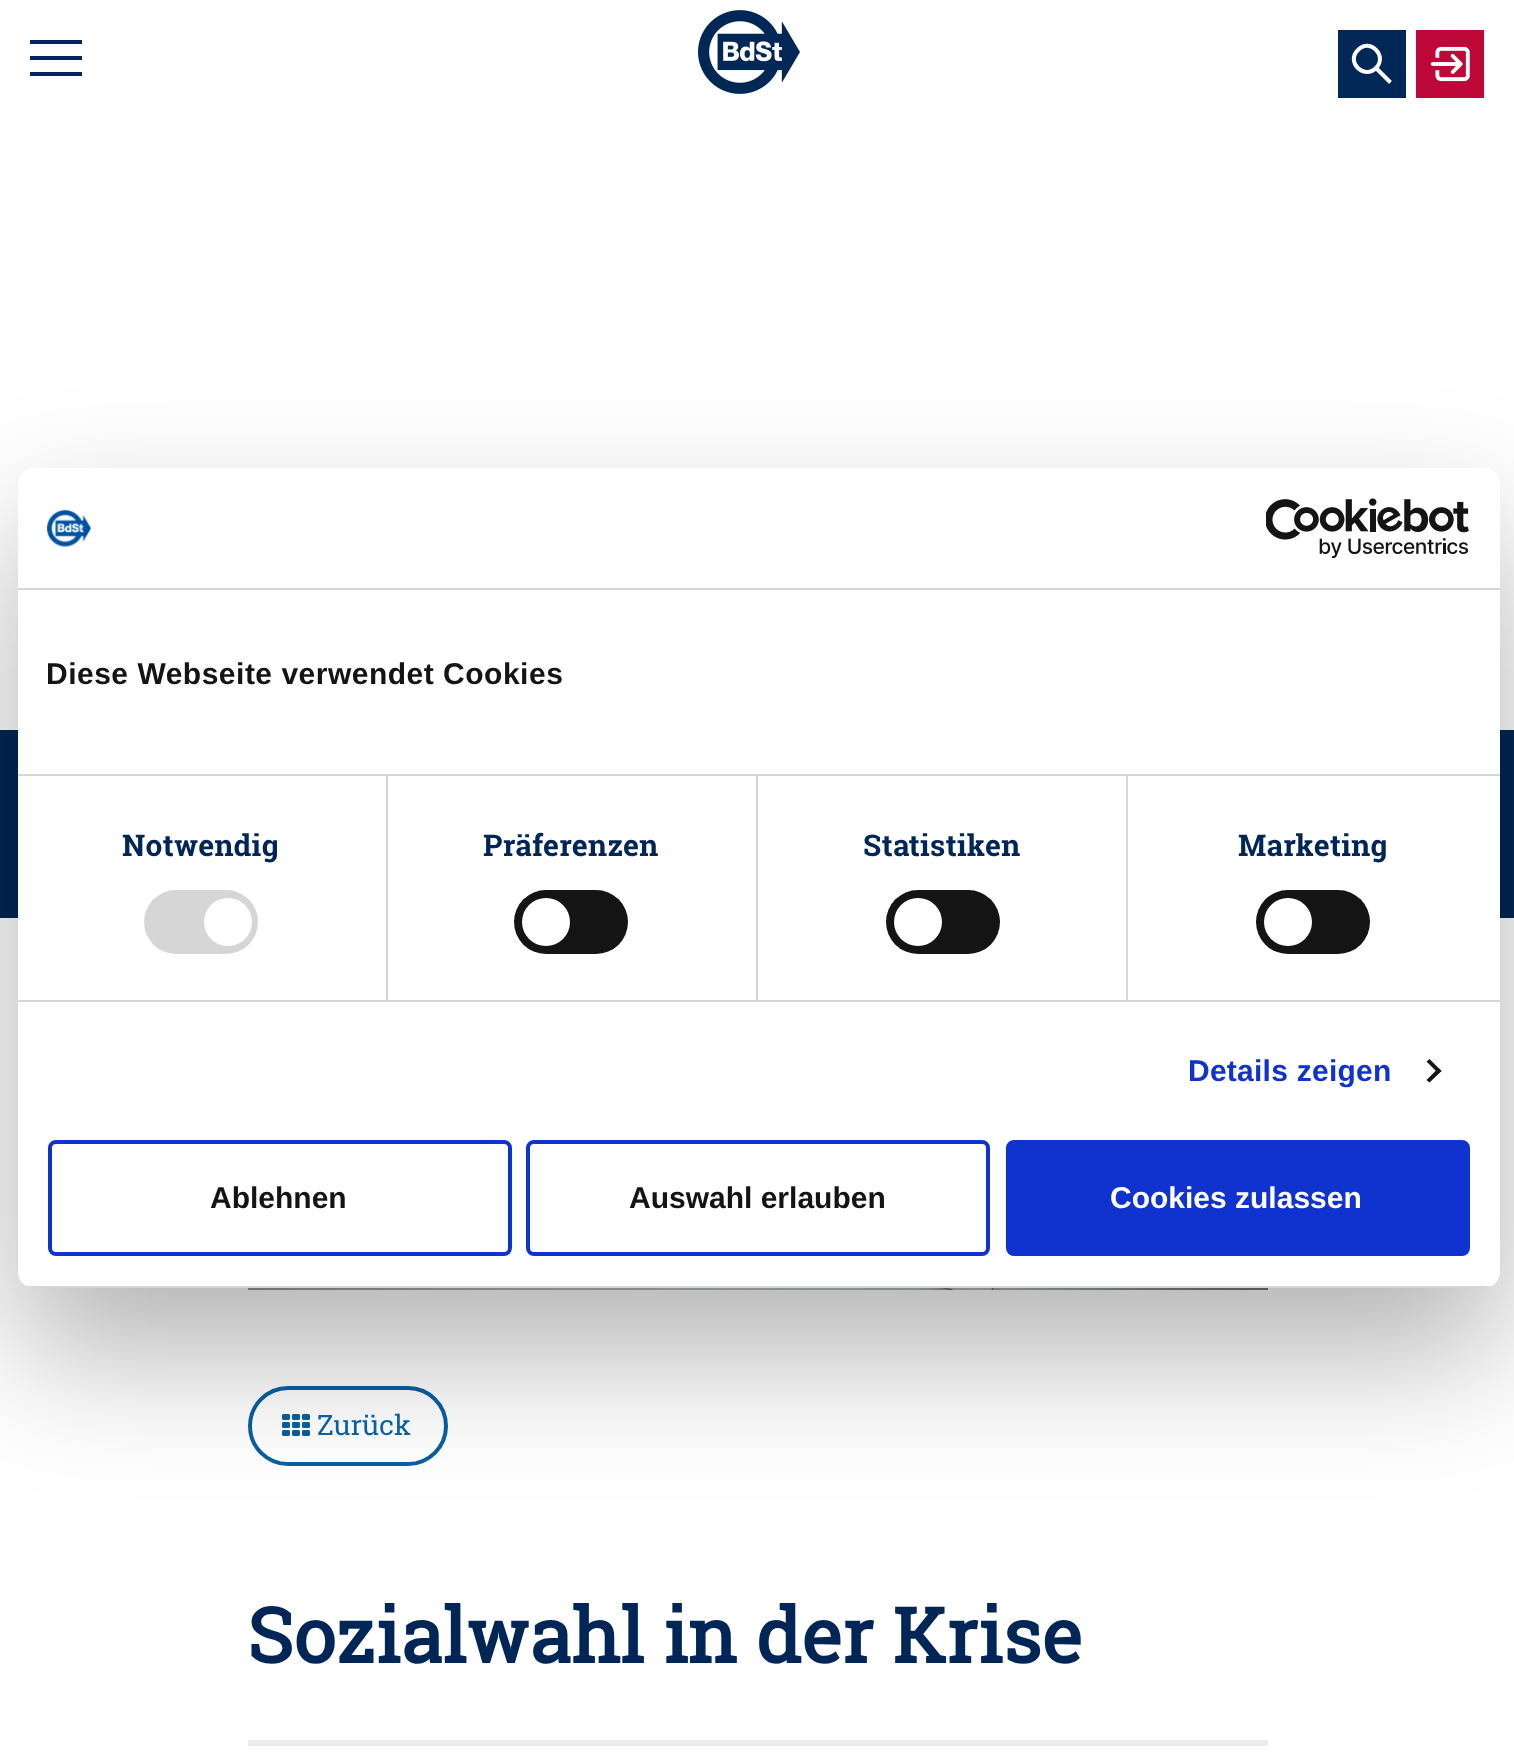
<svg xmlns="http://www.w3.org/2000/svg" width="1514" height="1755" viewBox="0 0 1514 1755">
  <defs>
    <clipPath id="clip1"><rect x="18" y="468" width="1482" height="820" rx="16"/></clipPath>
  </defs>
  <rect width="100%" height="100%" fill="rgb(255,255,255)"/>
  <rect x="30" y="40" width="52" height="4" fill="rgb(1,39,86)"/>
  <rect x="30" y="56" width="52" height="4" fill="rgb(1,39,86)"/>
  <rect x="30" y="72" width="52" height="4" fill="rgb(1,39,86)"/>
  <image x="698" y="10" width="102" height="84" href="pic1.png"/>
  <rect x="1338" y="30" width="68" height="68" fill="rgb(1,39,86)"/>
  <path d="M1358 50C1370 37.5 1388 56 1376 68C1364 80 1345.5 62 1358 50ZM1376 68L1390.5 82.5" fill="none" stroke="rgb(255,255,255)" stroke-width="4"/>
  <rect x="1416" y="30" width="68" height="68" fill="rgb(190,8,57)"/>
  <image x="1430" y="46" width="40" height="36" href="pic2.png"/>
  <rect x="0" y="730" width="18" height="188" fill="rgb(1,39,86)"/>
  <rect x="1500" y="730" width="14" height="188" fill="rgb(1,39,86)"/>
  <image x="248" y="1288" width="1020" height="2" href="pic5.png"/>
  <rect x="250" y="1388" width="196" height="76" rx="38" fill="none" stroke="rgb(9,96,162)" stroke-width="4"/>
  <image x="282" y="1414" width="28" height="22" href="pic6.png"/>
  <rect x="18" y="532" width="1482" height="820" rx="16" fill="rgba(0,0,0,0.3)" filter="blur(68px)"/>
  <rect x="18" y="468" width="1482" height="820" rx="16" fill="rgb(255,255,255)"/>
  <rect x="18" y="588" width="1482" height="2" fill="rgb(214,214,214)"/>
  <image x="46" y="510" width="45" height="38" href="pic3.png"/>
  <image x="1266" y="498" width="203" height="60" href="pic4.png"/>
  <rect x="18" y="774" width="1482" height="2" fill="rgb(214,214,214)"/>
  <text x="46" y="684" font-family="Liberation Sans" font-size="30" font-weight="bold" letter-spacing="0.5" fill="rgb(20,20,20)">Diese Webseite verwendet Cookies</text>
  <rect x="18" y="1000" width="1482" height="2" fill="rgb(214,214,214)"/>
  <rect x="386" y="776" width="2" height="224" fill="rgb(214,214,214)"/>
  <text x="122" y="856" font-family="'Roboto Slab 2'" font-size="30" font-weight="bold" letter-spacing="0.25" fill="rgb(0,38,87)">Notwendig</text>
  <rect x="144" y="890" width="114" height="64" rx="32" fill="rgb(214,214,214)"/>
  <circle cx="228" cy="922" r="24" fill="rgb(255,255,255)"/>
  <rect x="756" y="776" width="2" height="224" fill="rgb(214,214,214)"/>
  <text x="483" y="856" font-family="'Roboto Slab 2'" font-size="30" font-weight="bold" letter-spacing="0.25" fill="rgb(0,38,87)">Präferenzen</text>
  <rect x="514" y="890" width="114" height="64" rx="32" fill="rgb(20,20,20)"/>
  <circle cx="546" cy="922" r="24" fill="rgb(255,255,255)"/>
  <rect x="1126" y="776" width="2" height="224" fill="rgb(214,214,214)"/>
  <text x="863" y="856" font-family="'Roboto Slab 2'" font-size="30" font-weight="bold" letter-spacing="0.25" fill="rgb(0,38,87)">Statistiken</text>
  <rect x="886" y="890" width="114" height="64" rx="32" fill="rgb(20,20,20)"/>
  <circle cx="918" cy="922" r="24" fill="rgb(255,255,255)"/>
  <text x="1238" y="856" font-family="'Roboto Slab 2'" font-size="30" font-weight="bold" letter-spacing="0.25" fill="rgb(0,38,87)">Marketing</text>
  <rect x="1256" y="890" width="114" height="64" rx="32" fill="rgb(20,20,20)"/>
  <circle cx="1288" cy="922" r="24" fill="rgb(255,255,255)"/>
  <text x="1188" y="1081" font-family="Liberation Sans" font-size="30" font-weight="bold" letter-spacing="0.25" fill="rgb(16,50,207)">Details zeigen</text>
  <path d="M1429.5 1059L1441.5 1071L1438.5 1073.5L1426.5 1061.5Z" fill="rgb(20,20,20)"/>
  <path d="M1438.5 1068L1441.5 1071L1429.5 1082.5L1426.5 1080Z" fill="rgb(20,20,20)"/>
  <g clip-path="url(#clip1)">
    <rect x="18" y="1286" width="1482" height="2" fill="rgb(214,214,214)"/>
  </g>
  <rect x="50" y="1142" width="460" height="112" rx="6" fill="none" stroke="rgb(16,50,207)" stroke-width="4"/>
  <text x="210" y="1208" font-family="Liberation Sans" font-size="30" font-weight="bold" fill="rgb(20,20,20)">Ablehnen</text>
  <rect x="528" y="1142" width="460" height="112" rx="6" fill="none" stroke="rgb(16,50,207)" stroke-width="4"/>
  <text x="629" y="1208" font-family="Liberation Sans" font-size="30" font-weight="bold" fill="rgb(20,20,20)">Auswahl erlauben</text>
  <rect x="1008" y="1142" width="460" height="112" rx="6" fill="rgb(16,50,207)" stroke="rgb(16,50,207)" stroke-width="4"/>
  <text x="1110" y="1208" font-family="Liberation Sans" font-size="30" font-weight="bold" fill="rgb(255,255,255)">Cookies zulassen</text>
  <text x="317" y="1435" font-family="Roboto Slab" font-size="28" fill="rgb(9,96,162)">Zurück</text>
  <rect x="248" y="1740" width="1020" height="6" fill="rgb(235,235,235)"/>
  <text x="247" y="1663" font-family="Roboto Slab" font-size="76" font-weight="bold" fill="rgb(0,38,87)">Sozialwahl in der Krise</text>
</svg>
